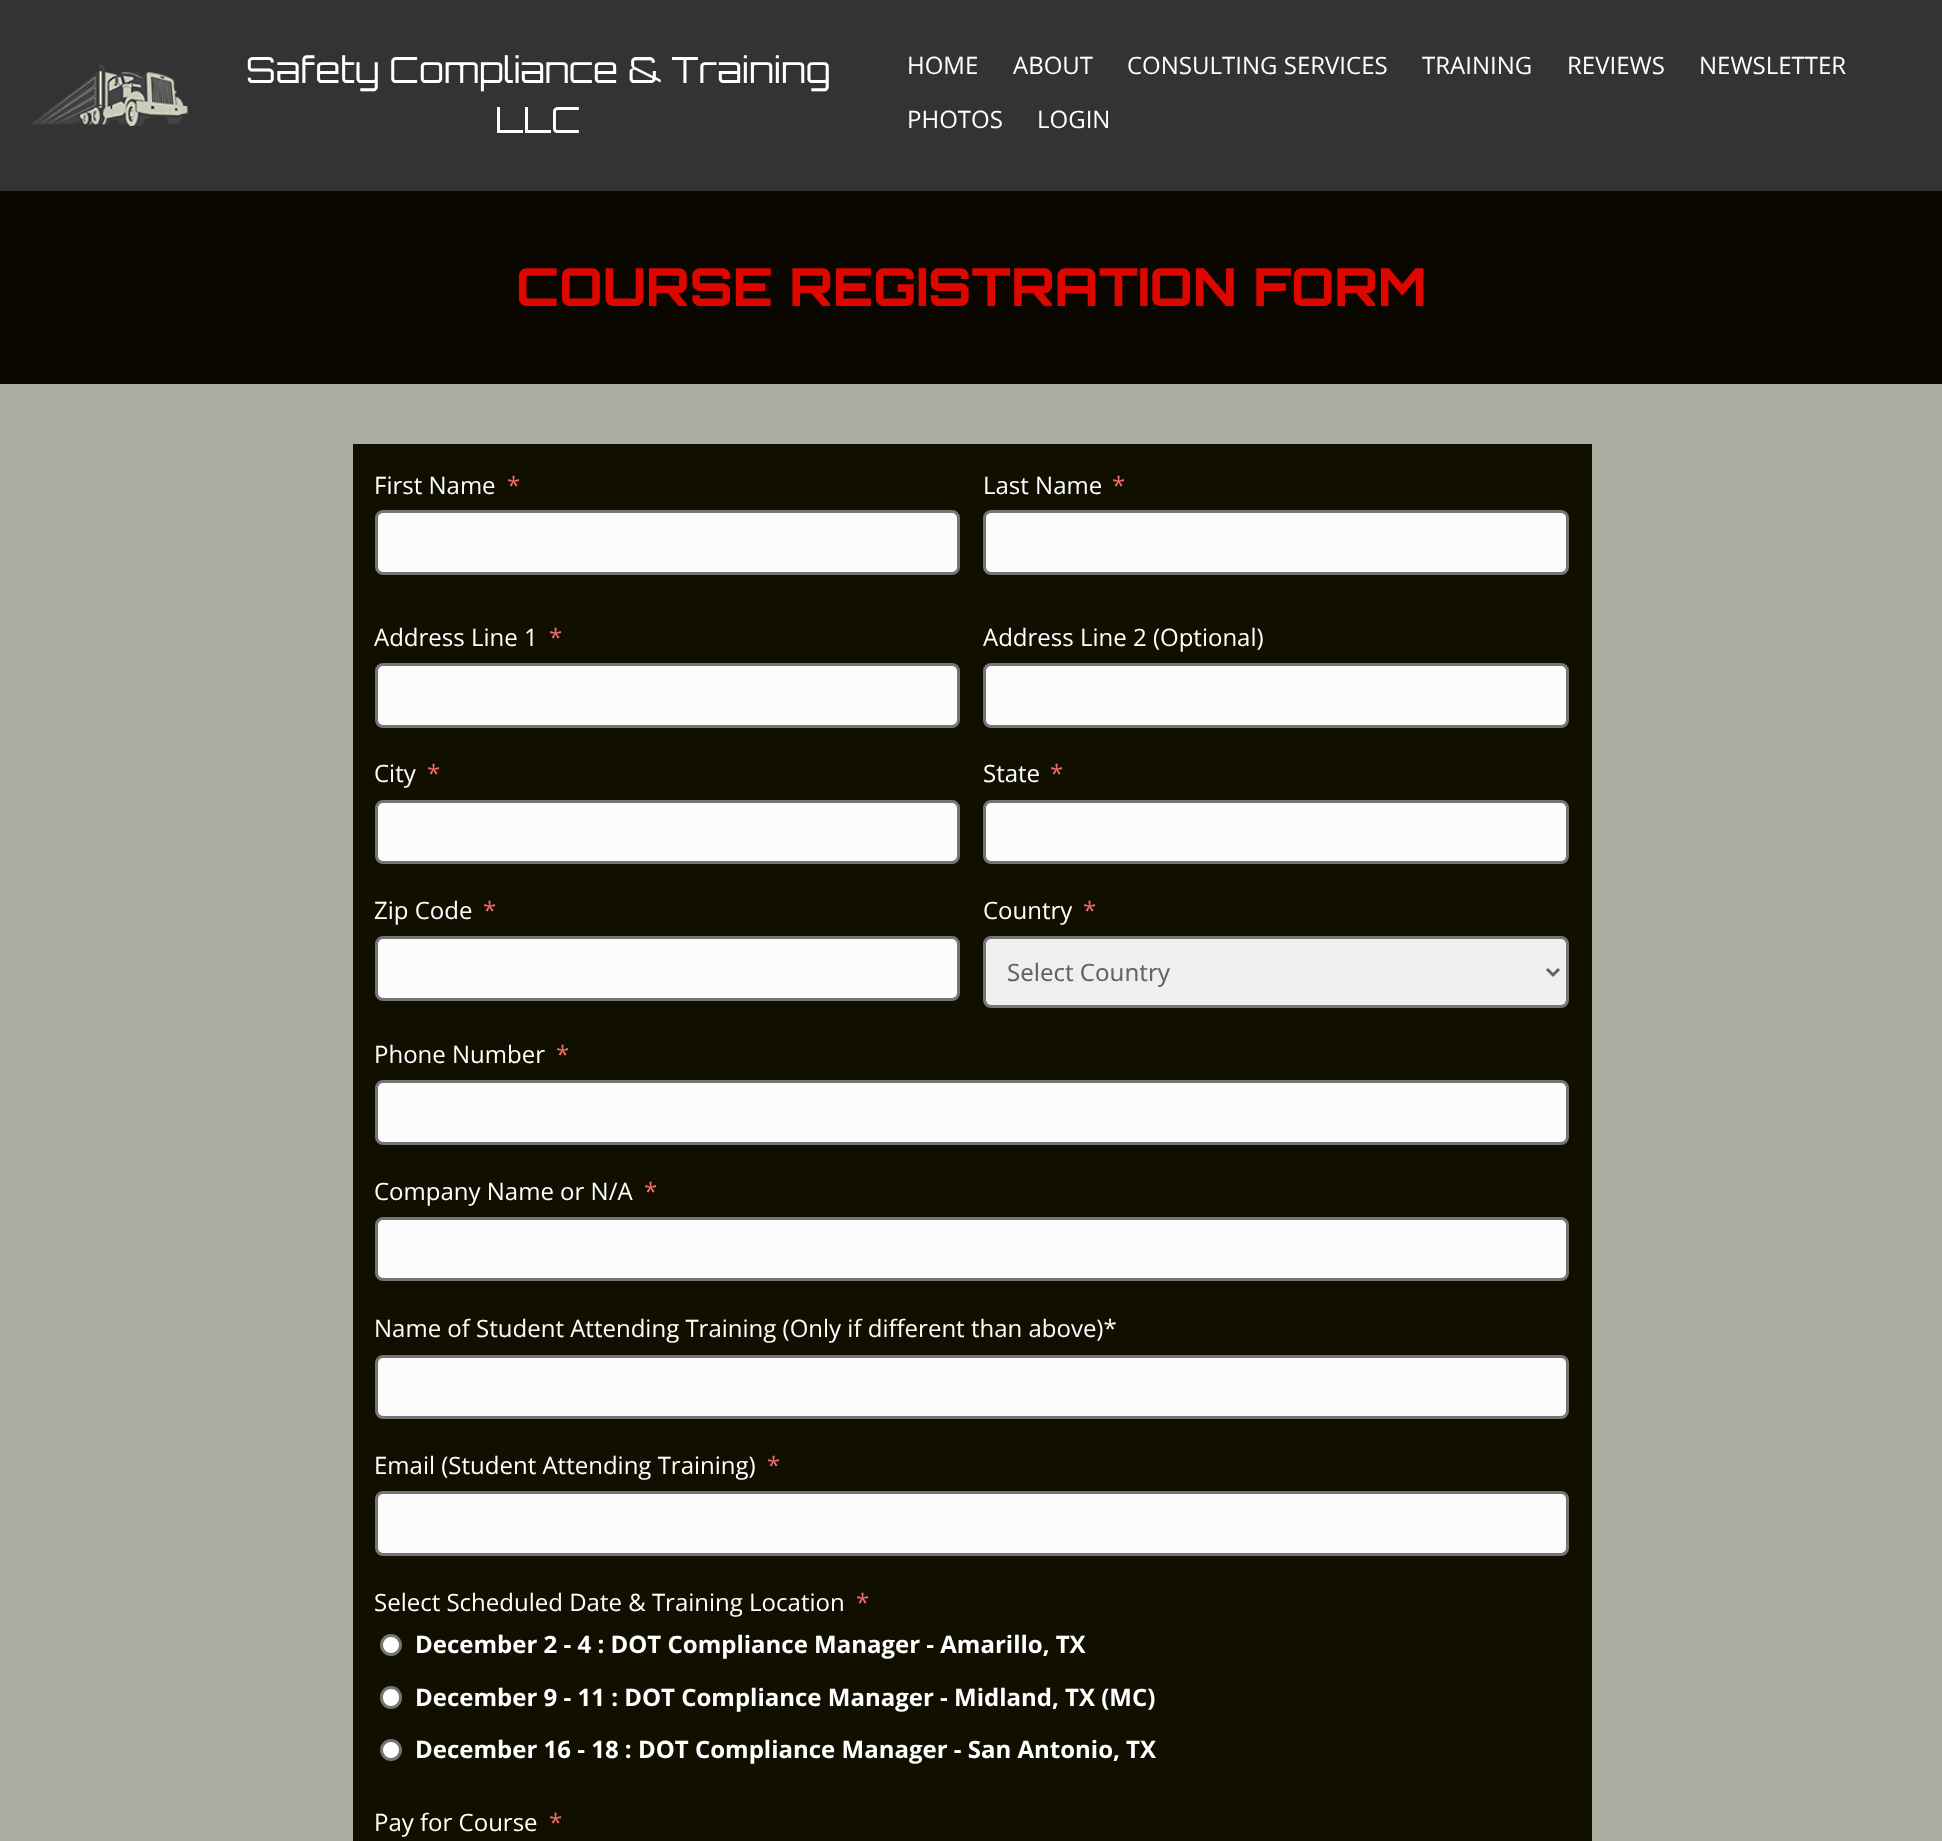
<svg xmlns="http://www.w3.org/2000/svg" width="1942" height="1841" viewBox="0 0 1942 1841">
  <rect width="100%" height="100%" fill="rgb(51,51,51)"/>
  <image x="30" y="64" width="158" height="62" href="pic1.png"/>
  <g font-family="Orbitron" font-size="36" fill="rgb(255,255,255)">
    <text x="246" y="83">Safety Compliance &amp; Training</text>
    <text x="495" y="133">LLC</text>
  </g>
  <g font-family="Open Sans" font-size="24" fill="rgb(255,255,255)">
    <text x="907" y="74">HOME</text>
    <text x="1013" y="74">ABOUT</text>
    <text x="1127" y="74">CONSULTING SERVICES</text>
    <text x="1422" y="74">TRAINING</text>
    <text x="1567" y="74">REVIEWS</text>
    <text x="1699" y="74">NEWSLETTER</text>
    <text x="907" y="128">PHOTOS</text>
    <text x="1037" y="128">LOGIN</text>
  </g>
  <rect x="0" y="191" width="1942" height="193" fill="rgb(10,6,0)"/>
  <text x="516" y="306" font-family="Orbitron" font-size="52.5" font-weight="800" fill="rgb(221,7,0)">COURSE REGISTRATION FORM</text>
  <rect x="0" y="384" width="1942" height="1457" fill="rgb(169,173,160)"/>
  <rect x="353" y="444" width="1239" height="1397" fill="rgb(17,16,0)"/>
  <text x="374" y="494" font-family="Open Sans" font-size="24" fill="rgb(255,255,255)">First Name</text>
  <text x="507" y="494" font-family="Open Sans" font-size="24" fill="rgb(245,108,108)">*</text>
  <rect x="376.5" y="511.5" width="582" height="62" rx="6.5" fill="rgb(252,252,252)" stroke="rgb(117,117,117)" stroke-width="3"/>
  <text x="983" y="494" font-family="Open Sans" font-size="24" fill="rgb(255,255,255)">Last Name</text>
  <text x="1112" y="494" font-family="Open Sans" font-size="24" fill="rgb(245,108,108)">*</text>
  <rect x="984.5" y="511.5" width="583" height="62" rx="6.5" fill="rgb(252,252,252)" stroke="rgb(117,117,117)" stroke-width="3"/>
  <text x="374" y="646" font-family="Open Sans" font-size="24" fill="rgb(255,255,255)">Address Line 1</text>
  <text x="549" y="646" font-family="Open Sans" font-size="24" fill="rgb(245,108,108)">*</text>
  <rect x="376.5" y="664.5" width="582" height="62" rx="6.5" fill="rgb(252,252,252)" stroke="rgb(117,117,117)" stroke-width="3"/>
  <text x="983" y="646" font-family="Open Sans" font-size="24" fill="rgb(255,255,255)">Address Line 2 (Optional)</text>
  <rect x="984.5" y="664.5" width="583" height="62" rx="6.5" fill="rgb(252,252,252)" stroke="rgb(117,117,117)" stroke-width="3"/>
  <text x="374" y="782" font-family="Open Sans" font-size="24" fill="rgb(255,255,255)">City</text>
  <text x="427" y="782" font-family="Open Sans" font-size="24" fill="rgb(245,108,108)">*</text>
  <rect x="376.5" y="801.5" width="582" height="61" rx="6.5" fill="rgb(252,252,252)" stroke="rgb(117,117,117)" stroke-width="3"/>
  <text x="983" y="782" font-family="Open Sans" font-size="24" fill="rgb(255,255,255)">State</text>
  <text x="1050" y="782" font-family="Open Sans" font-size="24" fill="rgb(245,108,108)">*</text>
  <rect x="984.5" y="801.5" width="583" height="61" rx="6.5" fill="rgb(252,252,252)" stroke="rgb(117,117,117)" stroke-width="3"/>
  <text x="374" y="919" font-family="Open Sans" font-size="24" fill="rgb(255,255,255)">Zip Code</text>
  <text x="483" y="919" font-family="Open Sans" font-size="24" fill="rgb(245,108,108)">*</text>
  <rect x="376.5" y="937.5" width="582" height="62" rx="6.5" fill="rgb(252,252,252)" stroke="rgb(117,117,117)" stroke-width="3"/>
  <text x="983" y="919" font-family="Open Sans" font-size="24" fill="rgb(255,255,255)">Country</text>
  <text x="1083" y="919" font-family="Open Sans" font-size="24" fill="rgb(245,108,108)">*</text>
  <rect x="984.5" y="937.5" width="583" height="69" rx="6.5" fill="rgb(239,239,239)" stroke="rgb(117,117,117)" stroke-width="3"/>
  <path d="M1547 969L1553 975L1559 969" fill="none" stroke="rgb(96,98,102)" stroke-width="3"/>
  <text x="1007" y="981" font-family="Noto Sans" font-size="24" fill="rgb(96,98,102)">Select Country</text>
  <text x="374" y="1063" font-family="Open Sans" font-size="24" fill="rgb(255,255,255)">Phone Number</text>
  <text x="556" y="1063" font-family="Open Sans" font-size="24" fill="rgb(245,108,108)">*</text>
  <rect x="376.5" y="1081.5" width="1191" height="62" rx="6.5" fill="rgb(252,252,252)" stroke="rgb(117,117,117)" stroke-width="3"/>
  <text x="374" y="1200" font-family="Open Sans" font-size="24" fill="rgb(255,255,255)">Company Name or N/A</text>
  <text x="644" y="1200" font-family="Open Sans" font-size="24" fill="rgb(245,108,108)">*</text>
  <rect x="376.5" y="1218.5" width="1191" height="61" rx="6.5" fill="rgb(252,252,252)" stroke="rgb(117,117,117)" stroke-width="3"/>
  <text x="374" y="1337" font-family="Open Sans" font-size="24" fill="rgb(255,255,255)">Name of Student Attending Training (Only if different than above)*</text>
  <rect x="376.5" y="1356.5" width="1191" height="61" rx="6.5" fill="rgb(252,252,252)" stroke="rgb(117,117,117)" stroke-width="3"/>
  <text x="374" y="1474" font-family="Open Sans" font-size="24" fill="rgb(255,255,255)">Email (Student Attending Training)</text>
  <text x="767" y="1474" font-family="Open Sans" font-size="24" fill="rgb(245,108,108)">*</text>
  <rect x="376.5" y="1492.5" width="1191" height="62" rx="6.5" fill="rgb(252,252,252)" stroke="rgb(117,117,117)" stroke-width="3"/>
  <text x="374" y="1611" font-family="Open Sans" font-size="24" fill="rgb(255,255,255)">Select Scheduled Date &amp; Training Location</text>
  <text x="856" y="1611" font-family="Open Sans" font-size="24" fill="rgb(245,108,108)">*</text>
  <circle cx="391" cy="1645" r="9.5" fill="rgb(255,255,255)" stroke="rgb(117,117,117)" stroke-width="3"/>
  <text x="415" y="1653" font-family="Open Sans" font-size="24" font-weight="bold" fill="rgb(255,255,255)">December 2 - 4 : DOT Compliance Manager - Amarillo, TX</text>
  <rect x="381.5" y="1687.5" width="19" height="20" rx="9.5" fill="rgb(255,255,255)" stroke="rgb(117,117,117)" stroke-width="3"/>
  <text x="415" y="1706" font-family="Open Sans" font-size="24" font-weight="bold" fill="rgb(255,255,255)">December 9 - 11 : DOT Compliance Manager - Midland, TX (MC)</text>
  <circle cx="391" cy="1750" r="9.5" fill="rgb(255,255,255)" stroke="rgb(117,117,117)" stroke-width="3"/>
  <text x="415" y="1758" font-family="Open Sans" font-size="24" font-weight="bold" fill="rgb(255,255,255)">December 16 - 18 : DOT Compliance Manager - San Antonio, TX</text>
  <text x="374" y="1831" font-family="Open Sans" font-size="24" fill="rgb(255,255,255)">Pay for Course</text>
  <text x="549" y="1831" font-family="Open Sans" font-size="24" fill="rgb(245,108,108)">*</text>
</svg>
